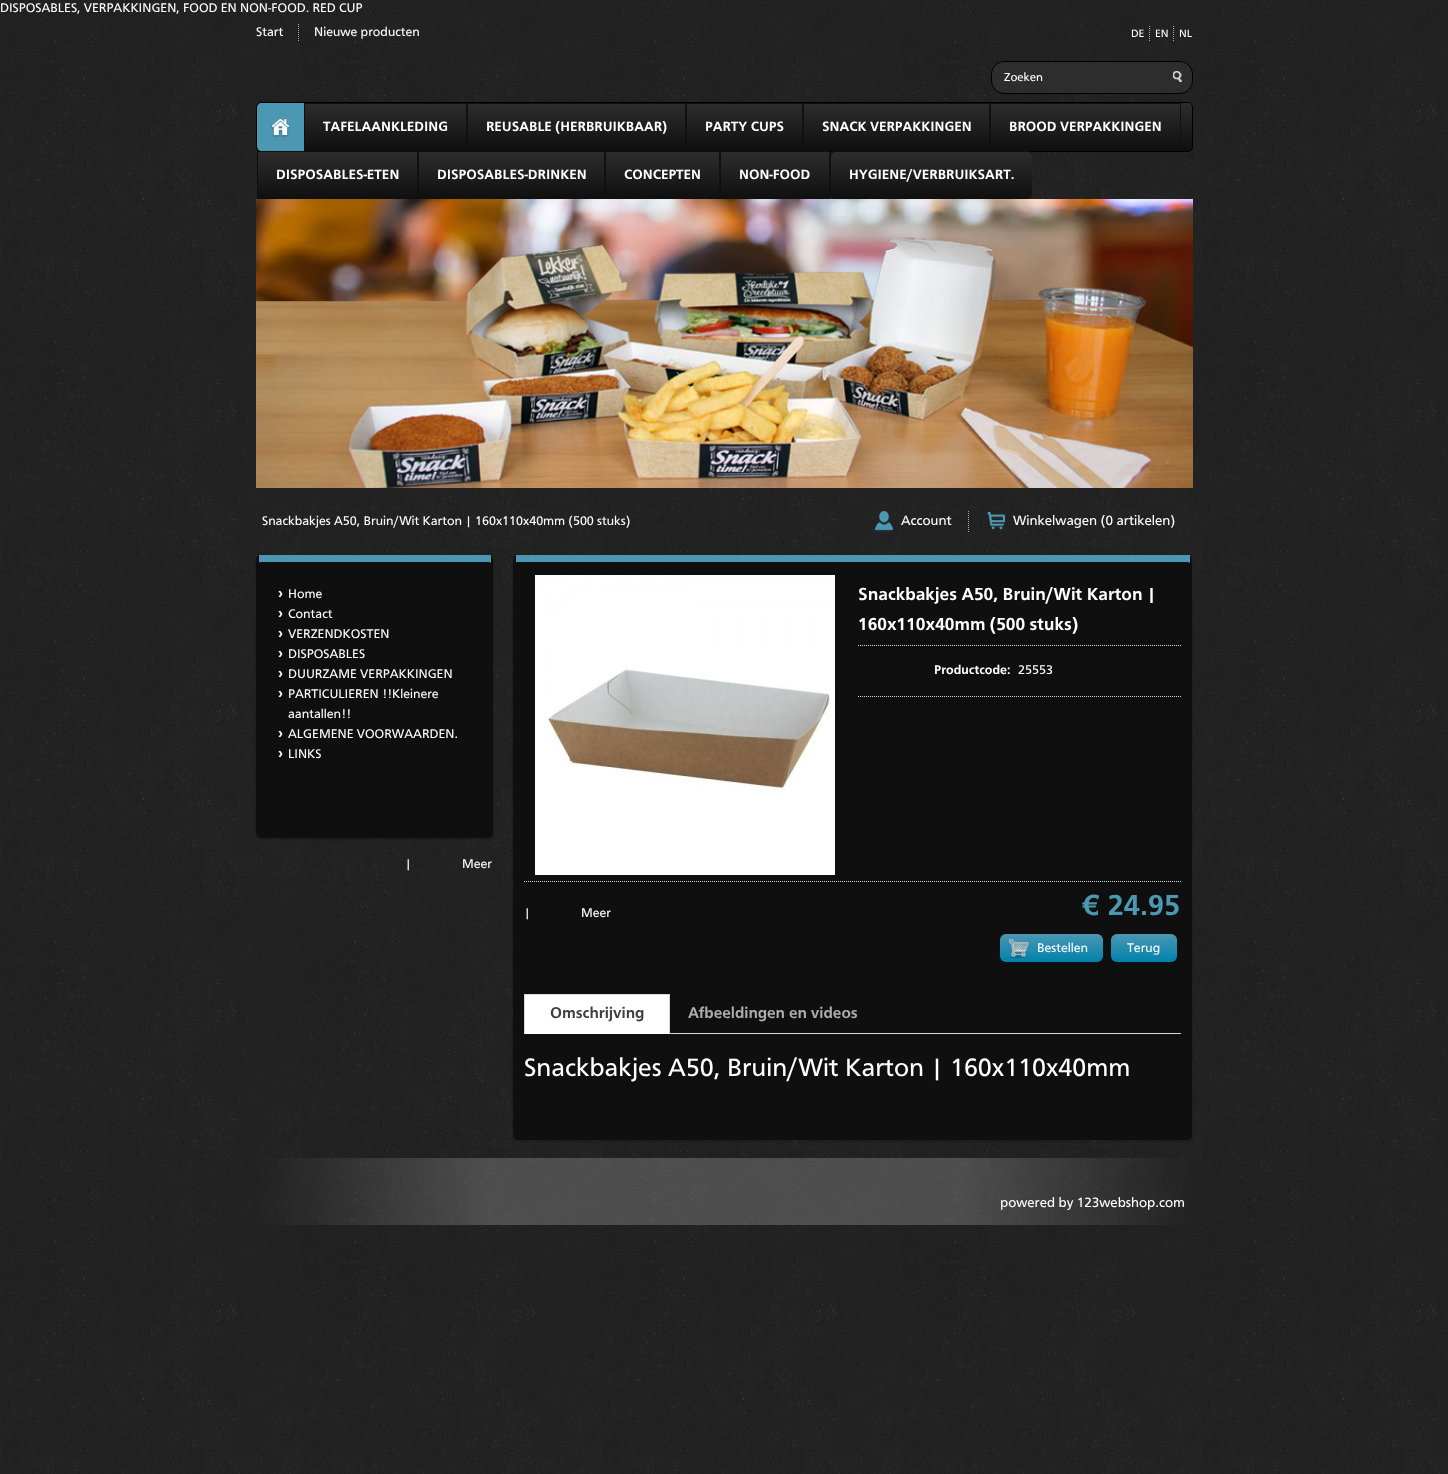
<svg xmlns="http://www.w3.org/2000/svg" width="1448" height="1474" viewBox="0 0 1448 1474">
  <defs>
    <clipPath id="clip1"><rect x="256" y="102" width="937" height="50" rx="5"/></clipPath>
    <linearGradient id="g1" gradientUnits="userSpaceOnUse" x1="725" y1="103" x2="725" y2="151"><stop offset="0" stop-color="rgb(45,45,45)"/><stop offset="1" stop-color="rgb(15,15,15)"/></linearGradient>
    <linearGradient id="g2" gradientUnits="userSpaceOnUse" x1="386" y1="57" x2="386" y2="104"><stop offset="0" stop-color="rgb(45,45,45)"/><stop offset="1" stop-color="rgb(15,15,15)"/></linearGradient>
    <linearGradient id="g3" gradientUnits="userSpaceOnUse" x1="577" y1="57" x2="577" y2="104"><stop offset="0" stop-color="rgb(45,45,45)"/><stop offset="1" stop-color="rgb(15,15,15)"/></linearGradient>
    <linearGradient id="g4" gradientUnits="userSpaceOnUse" x1="745" y1="57" x2="745" y2="104"><stop offset="0" stop-color="rgb(45,45,45)"/><stop offset="1" stop-color="rgb(15,15,15)"/></linearGradient>
    <linearGradient id="g5" gradientUnits="userSpaceOnUse" x1="897" y1="57" x2="897" y2="104"><stop offset="0" stop-color="rgb(45,45,45)"/><stop offset="1" stop-color="rgb(15,15,15)"/></linearGradient>
    <linearGradient id="g6" gradientUnits="userSpaceOnUse" x1="1086" y1="57" x2="1086" y2="104"><stop offset="0" stop-color="rgb(45,45,45)"/><stop offset="1" stop-color="rgb(15,15,15)"/></linearGradient>
    <linearGradient id="g7" gradientUnits="userSpaceOnUse" x1="338" y1="105" x2="338" y2="152"><stop offset="0" stop-color="rgb(45,45,45)"/><stop offset="1" stop-color="rgb(15,15,15)"/></linearGradient>
    <linearGradient id="g8" gradientUnits="userSpaceOnUse" x1="338" y1="152" x2="338" y2="199"><stop offset="0" stop-color="rgb(45,45,45)"/><stop offset="1" stop-color="rgb(15,15,15)"/></linearGradient>
    <linearGradient id="g9" gradientUnits="userSpaceOnUse" x1="512" y1="105" x2="512" y2="152"><stop offset="0" stop-color="rgb(45,45,45)"/><stop offset="1" stop-color="rgb(15,15,15)"/></linearGradient>
    <linearGradient id="g10" gradientUnits="userSpaceOnUse" x1="512" y1="152" x2="512" y2="199"><stop offset="0" stop-color="rgb(45,45,45)"/><stop offset="1" stop-color="rgb(15,15,15)"/></linearGradient>
    <linearGradient id="g11" gradientUnits="userSpaceOnUse" x1="663" y1="105" x2="663" y2="152"><stop offset="0" stop-color="rgb(45,45,45)"/><stop offset="1" stop-color="rgb(15,15,15)"/></linearGradient>
    <linearGradient id="g12" gradientUnits="userSpaceOnUse" x1="663" y1="152" x2="663" y2="199"><stop offset="0" stop-color="rgb(45,45,45)"/><stop offset="1" stop-color="rgb(15,15,15)"/></linearGradient>
    <linearGradient id="g13" gradientUnits="userSpaceOnUse" x1="775" y1="105" x2="775" y2="152"><stop offset="0" stop-color="rgb(45,45,45)"/><stop offset="1" stop-color="rgb(15,15,15)"/></linearGradient>
    <linearGradient id="g14" gradientUnits="userSpaceOnUse" x1="775" y1="152" x2="775" y2="199"><stop offset="0" stop-color="rgb(45,45,45)"/><stop offset="1" stop-color="rgb(15,15,15)"/></linearGradient>
    <clipPath id="clip2"><rect x="830" y="151" width="202" height="48" rx="5"/></clipPath>
    <linearGradient id="g15" gradientUnits="userSpaceOnUse" x1="932" y1="152" x2="932" y2="199"><stop offset="0" stop-color="rgb(45,45,45)"/><stop offset="1" stop-color="rgb(15,15,15)"/></linearGradient>
    <linearGradient id="g16" gradientUnits="userSpaceOnUse" x1="1052" y1="934" x2="1052" y2="962"><stop offset="0" stop-color="rgb(76,151,178)"/><stop offset="1" stop-color="rgb(0,130,173)"/></linearGradient>
    <linearGradient id="g17" gradientUnits="userSpaceOnUse" x1="1144" y1="934" x2="1144" y2="962"><stop offset="0" stop-color="rgb(76,151,178)"/><stop offset="1" stop-color="rgb(0,130,173)"/></linearGradient>
  </defs>
  <rect width="100%" height="100%" fill="rgb(255,255,255)"/>
  <image x="0" y="0" width="1448" height="1474" href="pic1.png"/>
  <g font-family="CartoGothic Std" font-size="13" fill="rgb(255,255,255)">
    <text x="0" y="12">DISPOSABLES, VERPAKKINGEN, FOOD EN NON-FOOD. RED CUP</text>
    <text x="256" y="36">Start</text>
  </g>
  <path d="M298.5 24V41" fill="none" stroke="rgb(172,172,172)" stroke-dasharray="1 1"/>
  <text x="314" y="36" font-family="CartoGothic Std" font-size="13" fill="rgb(255,255,255)">Nieuwe producten</text>
  <text x="1131" y="37" font-family="CartoGothic Std" font-size="11" fill="rgb(255,255,255)">DE</text>
  <path d="M1149.5 26V41" fill="none" stroke="rgb(172,172,172)" stroke-dasharray="1 1"/>
  <text x="1155" y="37" font-family="CartoGothic Std" font-size="11" fill="rgb(255,255,255)">EN</text>
  <path d="M1173.5 26V41" fill="none" stroke="rgb(172,172,172)" stroke-dasharray="1 1"/>
  <text x="1179" y="37" font-family="CartoGothic Std" font-size="11" fill="rgb(255,255,255)">NL</text>
  <rect x="991.5" y="61.5" width="201" height="32" rx="12.5" fill="rgb(45,45,45)" stroke="rgb(0,0,0)"/>
  <text x="1004" y="81" font-family="CartoGothic Std" font-size="12" fill="rgb(255,255,255)">Zoeken</text>
  <image x="1173" y="71" width="9" height="11" href="pic2.png"/>
  <g clip-path="url(#clip1)">
    <rect x="256" y="103" width="937" height="48" fill="url(#g1)"/>
  </g>
  <rect x="256.5" y="102.5" width="936" height="49" rx="4.5" fill="none" stroke="rgb(0,0,0)"/>
  <path d="M262 103H304V151H262C259 151 257 149 257 146V108C257 105 259 103 262 103Z" fill="rgb(76,151,178)"/>
  <rect x="260" y="103" width="2" height="1" fill="rgb(76,151,178)"/>
  <image x="271" y="119" width="19" height="18" href="pic3.png"/>
  <rect x="304" y="103" width="163" height="1" fill="url(#g2)"/>
  <rect x="466" y="103" width="1" height="48" fill="rgb(17,17,17)"/>
  <rect x="304" y="103" width="1" height="48" fill="rgb(15,15,15)"/>
  <text x="323" y="131" font-family="CartoGothic Std" font-size="14" font-weight="bold" fill="rgb(255,255,255)">TAFELAANKLEDING</text>
  <rect x="467" y="103" width="219" height="1" fill="url(#g3)"/>
  <rect x="685" y="103" width="1" height="48" fill="rgb(17,17,17)"/>
  <rect x="467" y="103" width="1" height="48" fill="rgb(15,15,15)"/>
  <text x="486" y="131" font-family="CartoGothic Std" font-size="14" font-weight="bold" fill="rgb(255,255,255)">REUSABLE (HERBRUIKBAAR)</text>
  <rect x="686" y="103" width="117" height="1" fill="url(#g4)"/>
  <rect x="802" y="103" width="1" height="48" fill="rgb(17,17,17)"/>
  <rect x="686" y="103" width="1" height="48" fill="rgb(15,15,15)"/>
  <text x="705" y="131" font-family="CartoGothic Std" font-size="14" font-weight="bold" fill="rgb(255,255,255)">PARTY CUPS</text>
  <rect x="803" y="103" width="187" height="1" fill="url(#g5)"/>
  <rect x="989" y="103" width="1" height="48" fill="rgb(17,17,17)"/>
  <rect x="803" y="103" width="1" height="48" fill="rgb(15,15,15)"/>
  <text x="822" y="131" font-family="CartoGothic Std" font-size="14" font-weight="bold" fill="rgb(255,255,255)">SNACK VERPAKKINGEN</text>
  <rect x="990" y="103" width="191" height="1" fill="url(#g6)"/>
  <rect x="1180" y="103" width="1" height="48" fill="rgb(17,17,17)"/>
  <rect x="990" y="103" width="1" height="48" fill="rgb(15,15,15)"/>
  <text x="1009" y="131" font-family="CartoGothic Std" font-size="14" font-weight="bold" fill="rgb(255,255,255)">BROOD VERPAKKINGEN</text>
  <rect x="257" y="151" width="161" height="1" fill="url(#g7)"/>
  <rect x="258" y="152" width="159" height="47" fill="url(#g8)"/>
  <rect x="417" y="151" width="1" height="48" fill="rgb(17,17,17)"/>
  <rect x="257" y="151" width="1" height="48" fill="rgb(15,15,15)"/>
  <text x="276" y="179" font-family="CartoGothic Std" font-size="14" font-weight="bold" fill="rgb(255,255,255)">DISPOSABLES-ETEN</text>
  <rect x="418" y="151" width="187" height="1" fill="url(#g9)"/>
  <rect x="419" y="152" width="185" height="47" fill="url(#g10)"/>
  <rect x="604" y="151" width="1" height="48" fill="rgb(17,17,17)"/>
  <rect x="418" y="151" width="1" height="48" fill="rgb(15,15,15)"/>
  <text x="437" y="179" font-family="CartoGothic Std" font-size="14" font-weight="bold" fill="rgb(255,255,255)">DISPOSABLES-DRINKEN</text>
  <rect x="605" y="151" width="115" height="1" fill="url(#g11)"/>
  <rect x="606" y="152" width="113" height="47" fill="url(#g12)"/>
  <rect x="719" y="151" width="1" height="48" fill="rgb(17,17,17)"/>
  <rect x="605" y="151" width="1" height="48" fill="rgb(15,15,15)"/>
  <text x="624" y="179" font-family="CartoGothic Std" font-size="14" font-weight="bold" fill="rgb(255,255,255)">CONCEPTEN</text>
  <rect x="720" y="151" width="110" height="1" fill="url(#g13)"/>
  <rect x="721" y="152" width="108" height="47" fill="url(#g14)"/>
  <rect x="829" y="151" width="1" height="48" fill="rgb(17,17,17)"/>
  <rect x="720" y="151" width="1" height="48" fill="rgb(15,15,15)"/>
  <text x="739" y="179" font-family="CartoGothic Std" font-size="14" font-weight="bold" fill="rgb(255,255,255)">NON-FOOD</text>
  <g clip-path="url(#clip2)">
    <path d="M830 152H1032V194C1032 197 1030 199 1027 199H835C832 199 830 197 830 194Z" fill="url(#g15)"/>
  </g>
  <path d="M835 151H1027C1030 151 1032 153 1032 156V194C1032 197 1030 199 1027 199H835C832 199 830 197 830 194V156C830 153 832 151 835 151ZM835 152H1027C1030 152 1032 154 1032 156V194C1032 197 1030 199 1027 199H835C833 199 831 197 831 194V156C831 154 833 152 835 152Z" fill="rgb(15,15,15)" fill-rule="evenodd"/>
  <text x="849" y="179" font-family="CartoGothic Std" font-size="14" font-weight="bold" fill="rgb(255,255,255)">HYGIENE/VERBRUIKSART.</text>
  <image x="256" y="199" width="937" height="289" href="pic4.png"/>
  <text x="262" y="525" font-family="CartoGothic Std" font-size="13" fill="rgb(255,255,255)">Snackbakjes A50, Bruin/Wit Karton | 160x110x40mm (500 stuks)</text>
  <image x="875" y="511" width="18" height="21" href="pic5.png"/>
  <text x="901" y="525" font-family="CartoGothic Std" font-size="14" fill="rgb(255,255,255)">Account</text>
  <path d="M968.5 511V532" fill="none" stroke="rgb(172,172,172)" stroke-dasharray="1 1"/>
  <image x="987" y="512" width="18" height="19" href="pic6.png"/>
  <text x="1013" y="525" font-family="CartoGothic Std" font-size="14" fill="rgb(255,255,255)">Winkelwagen (0 artikelen)</text>
  <rect x="256" y="556" width="237" height="283" rx="5" fill="rgba(0,0,0,0.2)" filter="blur(1px)"/>
  <rect x="256" y="555" width="237" height="283" rx="5" fill="rgb(15,15,15)"/>
  <rect x="259" y="555" width="232" height="8" fill="rgb(76,151,178)"/>
  <rect x="256" y="562" width="237" height="10" rx="5" fill="rgb(15,15,15)"/>
  <text x="278" y="598" font-family="Liberation Sans" font-size="15" font-weight="bold" fill="rgb(255,255,255)">›</text>
  <text x="288" y="598" font-family="CartoGothic Std" font-size="13" fill="rgb(255,255,255)">Home</text>
  <text x="278" y="618" font-family="Liberation Sans" font-size="15" font-weight="bold" fill="rgb(255,255,255)">›</text>
  <text x="288" y="618" font-family="CartoGothic Std" font-size="13" fill="rgb(255,255,255)">Contact</text>
  <text x="278" y="638" font-family="Liberation Sans" font-size="15" font-weight="bold" fill="rgb(255,255,255)">›</text>
  <text x="288" y="638" font-family="CartoGothic Std" font-size="13" fill="rgb(255,255,255)">VERZENDKOSTEN</text>
  <text x="278" y="658" font-family="Liberation Sans" font-size="15" font-weight="bold" fill="rgb(255,255,255)">›</text>
  <text x="288" y="658" font-family="CartoGothic Std" font-size="13" fill="rgb(255,255,255)">DISPOSABLES</text>
  <text x="278" y="678" font-family="Liberation Sans" font-size="15" font-weight="bold" fill="rgb(255,255,255)">›</text>
  <text x="288" y="678" font-family="CartoGothic Std" font-size="13" fill="rgb(255,255,255)">DUURZAME VERPAKKINGEN</text>
  <text x="278" y="698" font-family="Liberation Sans" font-size="15" font-weight="bold" fill="rgb(255,255,255)">›</text>
  <g font-family="CartoGothic Std" font-size="13" fill="rgb(255,255,255)">
    <text>
      <tspan x="288" y="698">PARTICULIEREN !!Kleinere</tspan>
      <tspan x="288" y="718">aantallen!!</tspan>
    </text>
  </g>
  <text x="278" y="738" font-family="Liberation Sans" font-size="15" font-weight="bold" fill="rgb(255,255,255)">›</text>
  <text x="288" y="738" font-family="CartoGothic Std" font-size="13" fill="rgb(255,255,255)">ALGEMENE VOORWAARDEN.</text>
  <text x="278" y="758" font-family="Liberation Sans" font-size="15" font-weight="bold" fill="rgb(255,255,255)">›</text>
  <g font-family="CartoGothic Std" font-size="13" fill="rgb(255,255,255)">
    <text x="288" y="758">LINKS</text>
    <text x="405" y="868">|</text>
    <text x="462" y="868">Meer</text>
  </g>
  <rect x="513" y="556" width="679" height="585" rx="5" fill="rgba(0,0,0,0.2)" filter="blur(1px)"/>
  <rect x="513" y="555" width="679" height="585" rx="5" fill="rgb(15,15,15)"/>
  <rect x="516" y="555" width="674" height="8" fill="rgb(76,151,178)"/>
  <rect x="513" y="562" width="679" height="10" rx="5" fill="rgb(15,15,15)"/>
  <image x="535" y="575" width="300" height="300" href="pic7.png"/>
  <g font-family="CartoGothic Std" font-size="18" font-weight="bold" fill="rgb(255,255,255)">
    <text>
      <tspan x="858" y="600">Snackbakjes A50, Bruin/Wit Karton |</tspan>
      <tspan x="858" y="630">160x110x40mm (500 stuks)</tspan>
    </text>
  </g>
  <path d="M858 645.5H1181" fill="none" stroke="rgb(216,216,216)" stroke-dasharray="1 1"/>
  <text x="934" y="674" font-family="CartoGothic Std" font-size="13" font-weight="bold" fill="rgb(255,255,255)">Productcode:</text>
  <text x="1018" y="674" font-family="CartoGothic Std" font-size="13" fill="rgb(255,255,255)">25553</text>
  <path d="M858 696.5H1181" fill="none" stroke="rgb(216,216,216)" stroke-dasharray="1 1"/>
  <path d="M524 881.5H1181" fill="none" stroke="rgb(216,216,216)" stroke-dasharray="1 1"/>
  <g font-family="CartoGothic Std" font-size="13" fill="rgb(255,255,255)">
    <text x="524" y="917">|</text>
    <text x="581" y="917">Meer</text>
  </g>
  <text x="1081" y="915" font-family="CartoGothic Std" font-size="30" font-weight="bold" fill="rgb(76,151,178)">€ 24.95</text>
  <rect x="1000" y="934" width="103" height="28" rx="6" fill="url(#g16)"/>
  <image x="1009" y="939" width="20" height="20" href="pic8.png"/>
  <text x="1037" y="952" font-family="CartoGothic Std" font-size="13" fill="rgb(255,255,255)">Bestellen</text>
  <rect x="1111" y="934" width="66" height="28" rx="6" fill="url(#g17)"/>
  <text x="1127" y="952" font-family="CartoGothic Std" font-size="13" fill="rgb(255,255,255)">Terug</text>
  <rect x="670" y="1033" width="511" height="1" fill="rgb(216,216,216)"/>
  <rect x="525" y="995" width="144" height="39" fill="rgb(255,255,255)"/>
  <rect x="524" y="994" width="146" height="1" fill="rgb(216,216,216)"/>
  <rect x="669" y="994" width="1" height="40" fill="rgb(216,216,216)"/>
  <rect x="524" y="994" width="1" height="40" fill="rgb(216,216,216)"/>
  <text x="550" y="1018" font-family="CartoGothic Std" font-size="16" font-weight="bold" fill="rgb(63,63,63)">Omschrijving</text>
  <text x="688" y="1018" font-family="CartoGothic Std" font-size="16" font-weight="bold" fill="rgb(173,173,173)">Afbeeldingen en videos</text>
  <text x="524" y="1076" font-family="CartoGothic Std" font-size="26" fill="rgb(255,255,255)">Snackbakjes A50, Bruin/Wit Karton | 160x110x40mm</text>
  <image x="0" y="1158" width="1448" height="67" href="pic9.png"/>
  <text x="1000" y="1207" font-family="CartoGothic Std" font-size="14" fill="rgb(255,255,255)">powered by 123webshop.com</text>
</svg>
